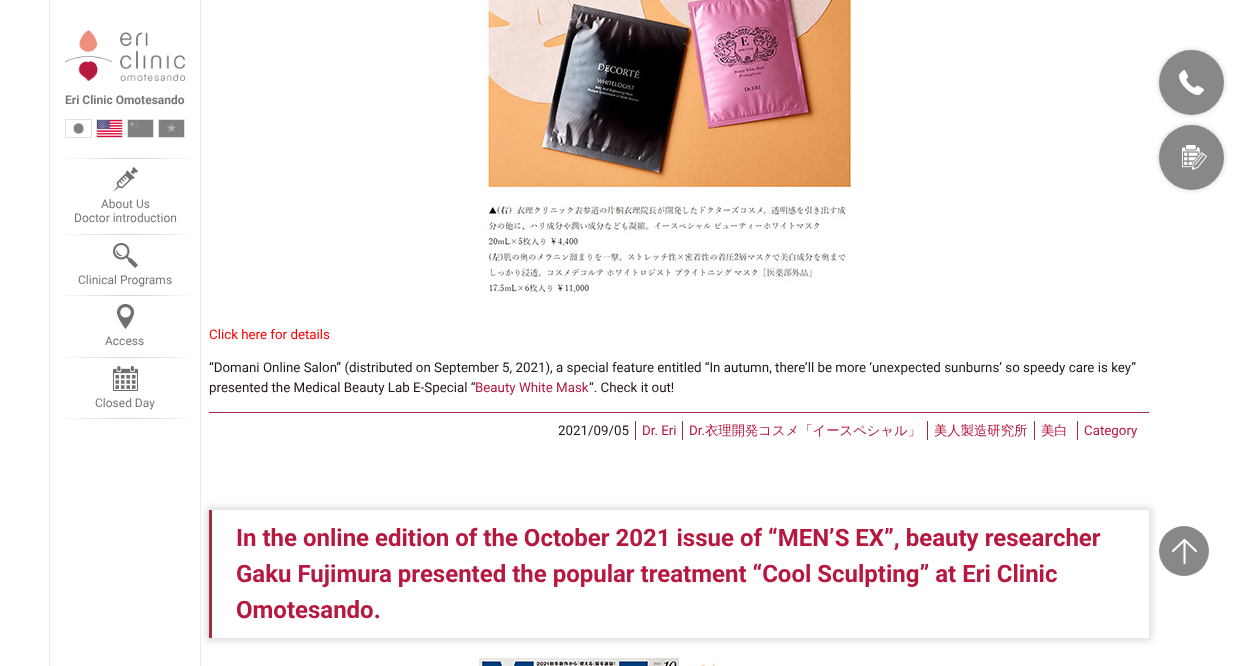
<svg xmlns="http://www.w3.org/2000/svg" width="1258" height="666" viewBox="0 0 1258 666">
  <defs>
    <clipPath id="clip1"><path d="M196 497H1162V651H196ZM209 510H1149V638H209Z" clip-rule="evenodd"/></clipPath>
  </defs>
  <rect width="100%" height="100%" fill="rgb(255,255,255)"/>
  <g clip-path="url(#clip1)">
    <rect x="206" y="507" width="946" height="134" fill="rgb(222,222,222)" filter="blur(3px)"/>
  </g>
  <rect x="200" y="0" width="1" height="666" fill="rgb(234,234,234)"/>
  <rect x="49" y="0" width="1" height="666" fill="rgb(234,234,234)"/>
  <image x="65" y="30" width="120" height="51" href="pic1.png"/>
  <text x="65" y="104" font-family="Roboto" font-size="12" font-weight="bold" fill="rgb(119,119,119)">Eri Clinic Omotesando</text>
  <rect x="65.5" y="119.5" width="26" height="18" fill="none" stroke="rgb(224,224,224)"/>
  <image x="73" y="123" width="12" height="11" href="pic2.png"/>
  <image x="97" y="120" width="25" height="17" href="pic3.png"/>
  <rect x="96.5" y="119.5" width="26" height="18" fill="none" stroke="rgb(224,224,224)"/>
  <image x="128" y="120" width="25" height="17" href="pic4.png"/>
  <rect x="127.5" y="119.5" width="26" height="18" fill="none" stroke="rgb(224,224,224)"/>
  <image x="128" y="120" width="25" height="17" href="pic5.png"/>
  <image x="159" y="120" width="25" height="17" href="pic6.png"/>
  <rect x="158.5" y="119.5" width="26" height="18" fill="none" stroke="rgb(224,224,224)"/>
  <image x="159" y="120" width="25" height="17" href="pic7.png"/>
  <image x="62" y="418" width="128" height="1" href="pic8.png"/>
  <image x="62" y="158" width="128" height="1" href="pic8.png"/>
  <image x="113" y="167" width="25" height="25" href="pic9.png"/>
  <g font-family="Roboto" font-size="12" fill="rgb(119,119,119)">
    <text x="101" y="208">About Us</text>
    <text x="74" y="222">Doctor introduction</text>
  </g>
  <image x="62" y="234" width="128" height="1" href="pic8.png"/>
  <image x="113" y="243" width="25" height="25" href="pic10.png"/>
  <text x="78" y="284" font-family="Roboto" font-size="12" fill="rgb(119,119,119)">Clinical Programs</text>
  <image x="62" y="295" width="128" height="1" href="pic8.png"/>
  <image x="117" y="304" width="17" height="25" href="pic11.png"/>
  <text x="105" y="345" font-family="Roboto" font-size="12" fill="rgb(119,119,119)">Access</text>
  <image x="62" y="357" width="128" height="1" href="pic8.png"/>
  <image x="113" y="366" width="25" height="25" href="pic12.png"/>
  <text x="95" y="407" font-family="Roboto" font-size="12" fill="rgb(119,119,119)">Closed Day</text>
  <rect x="1159" y="50" width="65" height="65" rx="32.5" fill="rgb(204,204,204)" filter="blur(2.5px)"/>
  <circle cx="1191.5" cy="82.5" r="32.5" fill="rgb(136,136,136)"/>
  <image x="1179" y="70" width="25" height="25" href="pic13.png"/>
  <rect x="1159" y="125" width="65" height="65" rx="32.5" fill="rgb(204,204,204)" filter="blur(2.5px)"/>
  <circle cx="1191.5" cy="157.5" r="32.5" fill="rgb(136,136,136)"/>
  <image x="1182" y="145" width="25" height="25" href="pic14.png"/>
  <circle cx="1184" cy="551" r="25" fill="rgb(136,136,136)"/>
  <image x="1172" y="539" width="25" height="25" href="pic15.png"/>
  <image x="487" y="0" width="364" height="299" href="pic16.png"/>
  <text x="209" y="339" font-family="Roboto" font-size="13.33" fill="rgb(255,0,0)">Click here for details</text>
  <g font-family="Roboto" font-size="13.33" fill="rgb(35,24,21)">
    <text>
      <tspan x="209" y="372">“Domani Online Salon” (distributed on September 5, 2021), a special feature entitled “In autumn, there’ll be more ‘unexpected sunburns’ so speedy care is key”</tspan>
      <tspan x="209" y="392">presented the Medical Beauty Lab E-Special “</tspan>
    </text>
  </g>
  <text x="475" y="392" font-family="Roboto" font-size="13.33" fill="rgb(183,24,63)">Beauty White Mask</text>
  <text x="589" y="392" font-family="Roboto" font-size="13.33" fill="rgb(35,24,21)">“. Check it out!</text>
  <rect x="209" y="412" width="940" height="1" fill="rgb(167,44,66)"/>
  <text x="558" y="435" font-family="Roboto" font-size="13.33" fill="rgb(35,24,21)">2021/09/05</text>
  <rect x="635" y="421" width="1" height="19" fill="rgb(167,44,66)"/>
  <text x="642" y="435" font-family="Roboto" font-size="13.33" fill="rgb(183,24,63)">Dr. Eri</text>
  <rect x="682" y="421" width="1" height="19" fill="rgb(167,44,66)"/>
  <text x="689" y="435" font-family="Roboto" font-size="13.33" fill="rgb(183,24,63)">Dr.</text>
  <text x="705" y="435" font-family="WenQuanYi Zen Hei" font-size="13.33" font-weight="500" fill="rgb(183,24,63)">衣理開発コスメ「イースペシャル」</text>
  <rect x="927" y="421" width="1" height="19" fill="rgb(167,44,66)"/>
  <text x="934" y="435" font-family="WenQuanYi Zen Hei" font-size="13.33" font-weight="500" fill="rgb(183,24,63)">美人製造研究所</text>
  <rect x="1034" y="421" width="1" height="19" fill="rgb(167,44,66)"/>
  <text x="1041" y="435" font-family="WenQuanYi Zen Hei" font-size="13.33" font-weight="500" fill="rgb(183,24,63)">美白</text>
  <rect x="1077" y="421" width="1" height="19" fill="rgb(167,44,66)"/>
  <text x="1084" y="435" font-family="Roboto" font-size="13.33" fill="rgb(183,24,63)">Category</text>
  <rect x="209" y="510" width="3" height="128" fill="rgb(167,44,66)"/>
  <g font-family="Roboto" font-size="24" font-weight="bold" fill="rgb(183,24,63)">
    <text>
      <tspan x="236" y="546">In the online edition of the October 2021 issue of “MEN’S EX”, beauty researcher</tspan>
      <tspan x="236" y="582">Gaku Fujimura presented the popular treatment “Cool Sculpting” at Eri Clinic</tspan>
      <tspan x="236" y="618">Omotesando.</tspan>
    </text>
  </g>
  <image x="479" y="658" width="240" height="8" href="pic17.png"/>
</svg>
